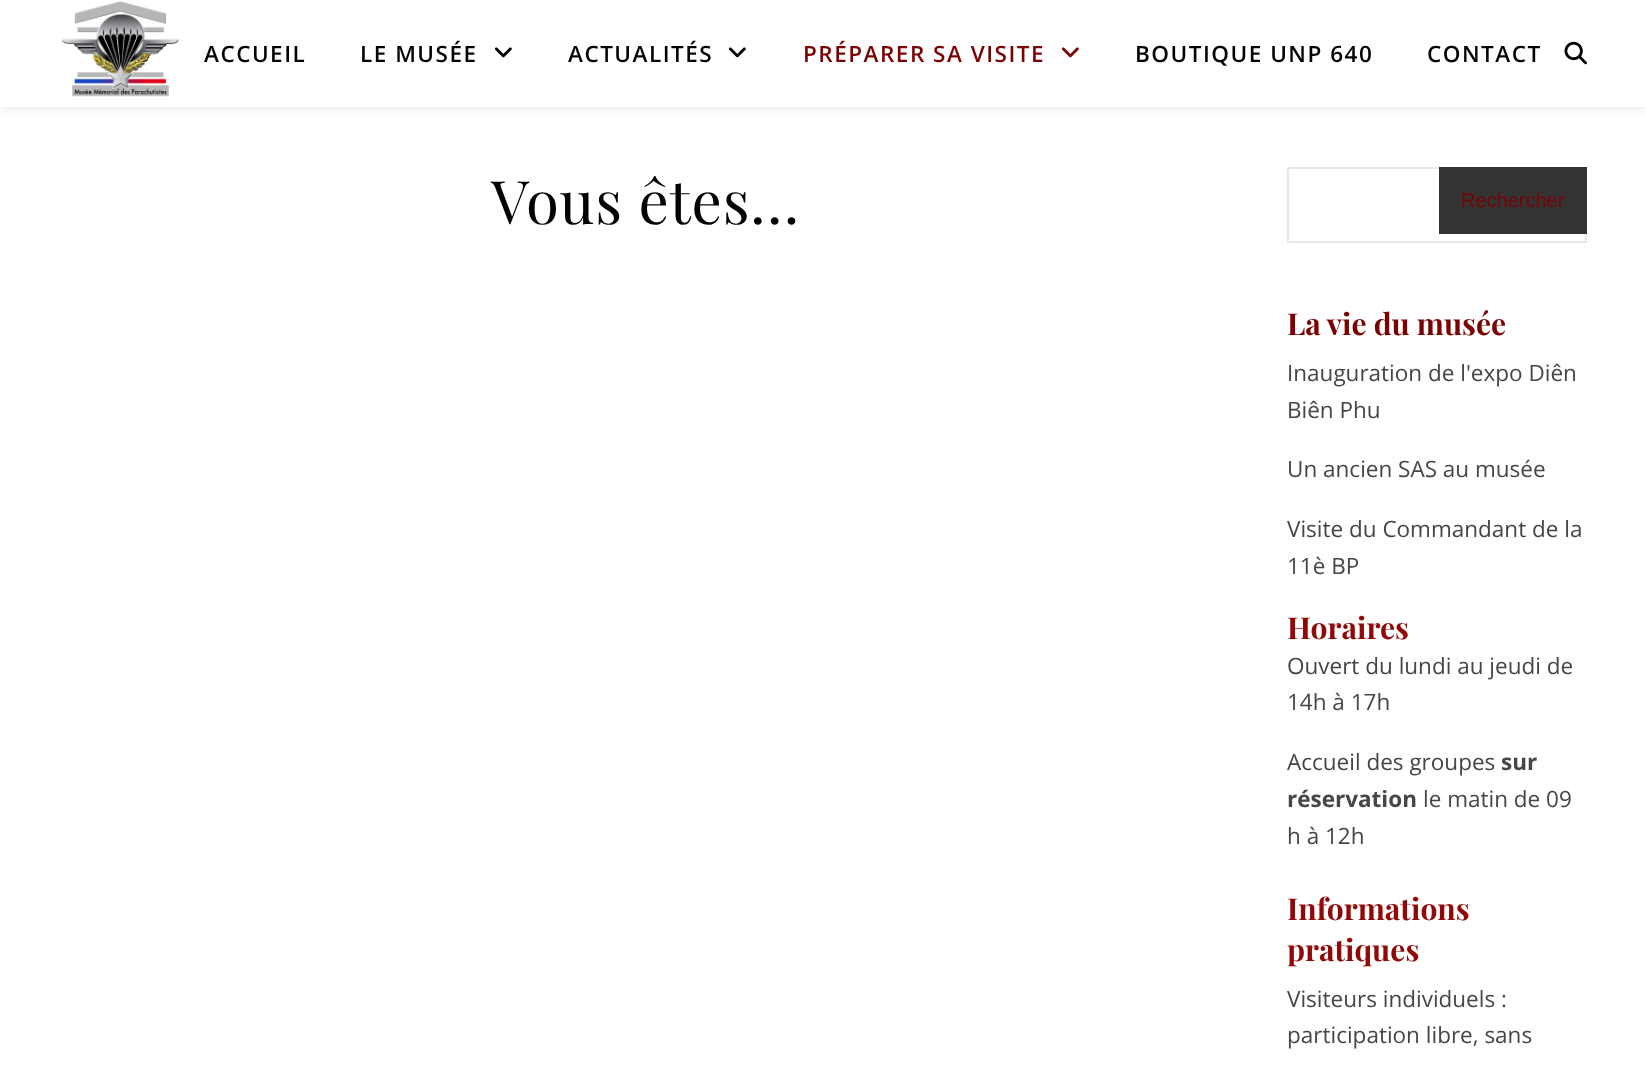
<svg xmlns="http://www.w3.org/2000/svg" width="1646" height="1073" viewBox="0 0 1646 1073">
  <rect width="100%" height="100%" fill="rgb(255,255,255)"/>
  <rect x="0" y="2" width="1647" height="106" fill="rgba(0,0,0,0.1)" filter="blur(4px)"/>
  <rect x="0" y="0" width="1646" height="107" fill="rgb(255,255,255)"/>
  <image x="61" y="1" width="118" height="96" href="pic1.png"/>
  <g font-family="Open Sans" font-size="22.5" font-weight="600" letter-spacing="1.5" fill="rgb(3,3,3)">
    <text x="204" y="62">ACCUEIL</text>
    <text x="360" y="62">LE MUSÉE</text>
  </g>
  <image x="494" y="47" width="18" height="11" href="pic2.png"/>
  <text x="568" y="62" font-family="Open Sans" font-size="22.5" font-weight="600" letter-spacing="1.5" fill="rgb(3,3,3)">ACTUALITÉS</text>
  <image x="728" y="47" width="18" height="11" href="pic2.png"/>
  <text x="803" y="62" font-family="Open Sans" font-size="22.5" font-weight="600" letter-spacing="1.5" fill="rgb(122,2,2)">PRÉPARER SA VISITE</text>
  <image x="1061" y="47" width="18" height="11" href="pic3.png"/>
  <g font-family="Open Sans" font-size="22.5" font-weight="600" letter-spacing="1.5" fill="rgb(3,3,3)">
    <text x="1135" y="62">BOUTIQUE UNP 640</text>
    <text x="1427" y="62">CONTACT</text>
  </g>
  <image x="1564" y="41" width="23" height="24" href="pic4.png"/>
  <text x="491" y="224" font-family="Playfair Display" font-size="60" letter-spacing="0.75" fill="rgb(3,3,3)">Vous êtes…</text>
  <rect x="1288" y="168" width="298" height="74" fill="none" stroke="rgb(232,232,232)" stroke-width="2"/>
  <rect x="1439" y="167" width="148" height="67" fill="rgb(51,51,51)"/>
  <text x="1461" y="207" font-family="Liberation Sans" font-size="20" fill="rgb(122,2,2)">Rechercher</text>
  <text x="1287" y="335" font-family="Playfair Display" font-size="30" font-weight="bold" fill="rgb(122,2,2)">La vie du musée</text>
  <g font-family="Open Sans" font-size="22.5" fill="rgb(70,70,70)">
    <text>
      <tspan x="1287" y="381">Inauguration de l'expo Diên</tspan>
      <tspan x="1287" y="418">Biên Phu</tspan>
    </text>
    <text x="1287" y="477">Un ancien SAS au musée</text>
    <text>
      <tspan x="1287" y="537">Visite du Commandant de la</tspan>
      <tspan x="1287" y="574">11è BP</tspan>
    </text>
  </g>
  <text x="1287" y="639" font-family="Playfair Display" font-size="30" font-weight="bold" fill="rgb(144,8,8)">Horaires</text>
  <g font-family="Open Sans" font-size="22.5" fill="rgb(70,70,70)">
    <text>
      <tspan x="1287" y="674">Ouvert du lundi au jeudi de</tspan>
      <tspan x="1287" y="710">14h à 17h</tspan>
    </text>
    <text x="1287" y="770">Accueil des groupes</text>
  </g>
  <g font-family="Open Sans" font-size="22.5" font-weight="bold" fill="rgb(70,70,70)">
    <text x="1501" y="770">sur</text>
    <text x="1287" y="807">réservation</text>
  </g>
  <g font-family="Open Sans" font-size="22.5" fill="rgb(70,70,70)">
    <text x="1423" y="807">le matin de 09</text>
    <text x="1287" y="844">h à 12h</text>
  </g>
  <g font-family="Playfair Display" font-size="30" font-weight="bold" fill="rgb(144,8,8)">
    <text>
      <tspan x="1287" y="920">Informations</tspan>
      <tspan x="1287" y="961">pratiques</tspan>
    </text>
  </g>
  <g font-family="Open Sans" font-size="22.5" fill="rgb(70,70,70)">
    <text>
      <tspan x="1287" y="1007">Visiteurs individuels :</tspan>
      <tspan x="1287" y="1043">participation libre, sans</tspan>
    </text>
  </g>
</svg>
